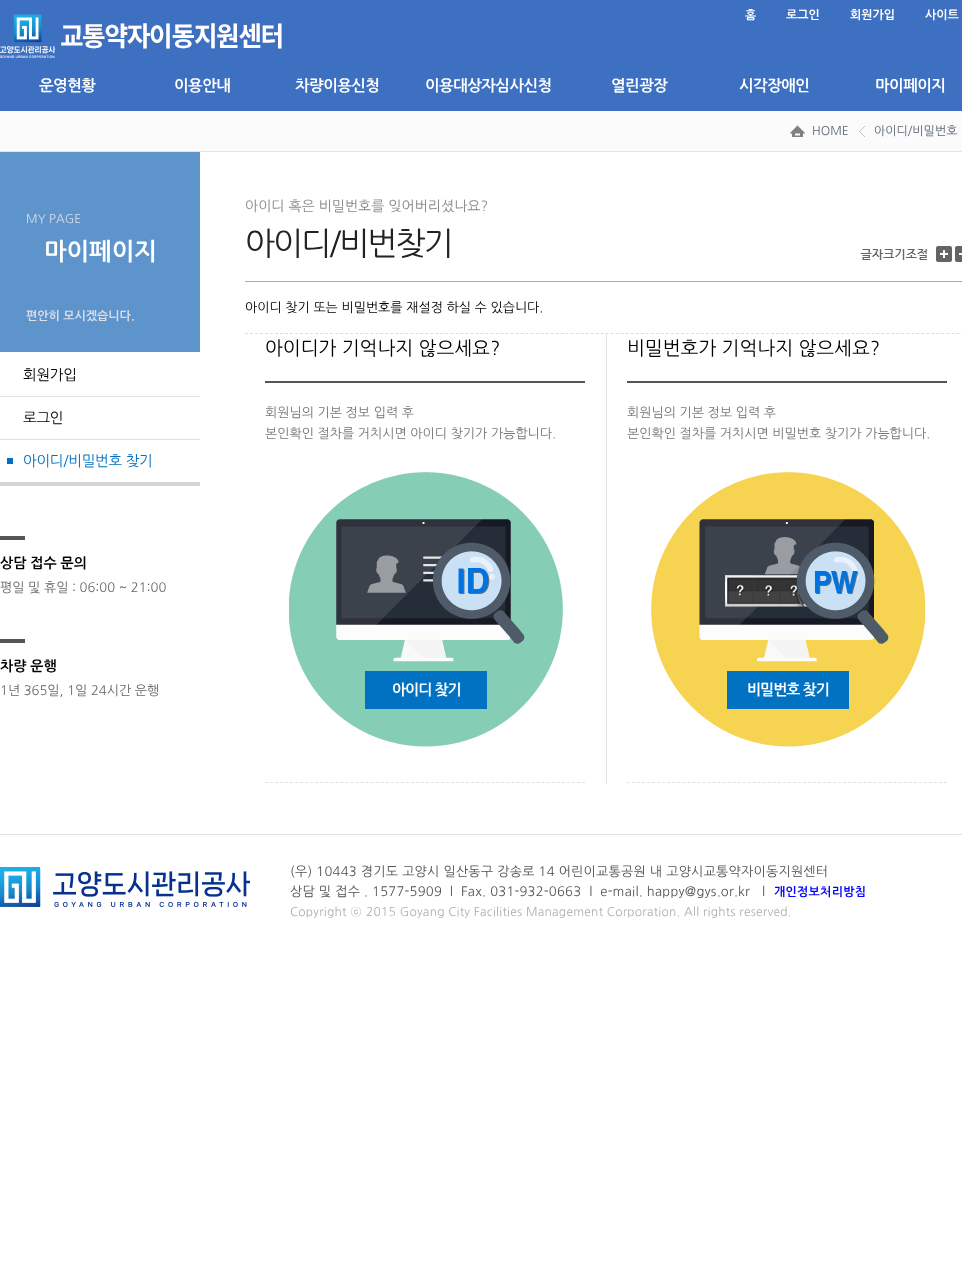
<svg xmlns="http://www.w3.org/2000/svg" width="962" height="1283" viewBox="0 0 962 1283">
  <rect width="100%" height="100%" fill="rgb(255,255,255)"/>
  <rect x="0" y="0" width="962" height="111" fill="rgb(61,112,193)"/>
  <image x="0" y="14" width="282" height="44" href="pic1.png"/>
  <g font-family="NanumGothic" font-size="12" font-weight="bold" fill="rgb(255,255,255)">
    <text x="745" y="19">홈</text>
    <text x="786" y="19">로그인</text>
    <text x="850" y="19">회원가입</text>
    <text x="925" y="19">사이트</text>
  </g>
  <g font-family="NanumGothic" font-size="15.5" font-weight="bold" letter-spacing="-0.5" fill="rgb(255,255,255)">
    <text x="39" y="91">운영현황</text>
    <text x="174" y="91">이용안내</text>
    <text x="295" y="91">차량이용신청</text>
    <text x="425" y="91">이용대상자심사신청</text>
    <text x="611" y="91">열린광장</text>
    <text x="739" y="91">시각장애인</text>
    <text x="875" y="91">마이페이지</text>
  </g>
  <rect x="0" y="111" width="962" height="40" fill="rgb(251,251,251)"/>
  <rect x="0" y="151" width="962" height="1" fill="rgb(229,229,229)"/>
  <image x="790" y="125" width="15" height="12" href="pic2.png"/>
  <text x="812" y="135" font-family="NanumGothic" font-size="12" fill="rgb(92,102,114)">HOME</text>
  <image x="859" y="126" width="6" height="11" href="pic3.png"/>
  <text x="874" y="135" font-family="NanumGothic" font-size="12" fill="rgb(92,102,114)">아이디/비밀번호</text>
  <rect x="0" y="152" width="200" height="200" fill="rgb(94,148,204)"/>
  <text x="26" y="223" font-family="NanumGothic" font-size="12" fill="rgb(221,222,230)">MY PAGE</text>
  <text x="44" y="260" font-family="NanumGothic" font-size="24" font-weight="bold" fill="rgb(255,255,255)">마이페이지</text>
  <text x="26" y="320" font-family="NanumGothic" font-size="12" font-weight="bold" fill="rgb(221,222,230)">편안히 모시겠습니다.</text>
  <rect x="0" y="482" width="200" height="4" fill="rgb(213,213,213)"/>
  <text x="23" y="380" font-family="NanumGothic" font-size="14.5" letter-spacing="-0.25" fill="rgb(0,0,0)">회원가입</text>
  <rect x="0" y="396" width="200" height="1" fill="rgb(225,225,225)"/>
  <text x="23" y="423" font-family="NanumGothic" font-size="14.5" letter-spacing="-0.25" fill="rgb(0,0,0)">로그인</text>
  <rect x="0" y="439" width="200" height="1" fill="rgb(225,225,225)"/>
  <rect x="7" y="458" width="6" height="6" fill="rgb(1,112,193)"/>
  <text x="23" y="466" font-family="NanumGothic" font-size="14.5" letter-spacing="-0.25" fill="rgb(1,112,193)">아이디/비밀번호 찾기</text>
  <rect x="0" y="536" width="25" height="4" fill="rgb(85,85,85)"/>
  <text x="0" y="568" font-family="NanumGothic" font-size="14" font-weight="bold" fill="rgb(0,0,0)">상담 접수 문의</text>
  <text x="0" y="592" font-family="NanumGothic" font-size="13" fill="rgb(102,102,102)">평일 및 휴일 : 06:00 ~ 21:00</text>
  <rect x="0" y="639" width="25" height="4" fill="rgb(85,85,85)"/>
  <text x="0" y="671" font-family="NanumGothic" font-size="14" font-weight="bold" fill="rgb(0,0,0)">차량 운행</text>
  <text x="0" y="695" font-family="NanumGothic" font-size="13" fill="rgb(102,102,102)">1년 365일, 1일 24시간 운행</text>
  <text x="245" y="211" font-family="NanumGothic" font-size="14" fill="rgb(136,136,136)">아이디 혹은 비밀번호를 잊어버리셨나요?</text>
  <text x="245" y="255" font-family="NanumGothic" font-size="32" letter-spacing="-2" fill="rgb(34,34,34)">아이디/비번찾기</text>
  <image x="860" y="249" width="68" height="11" href="pic4.png"/>
  <image x="936" y="246" width="16" height="16" href="pic5.png"/>
  <image x="955" y="246" width="7" height="16" href="pic6.png"/>
  <rect x="245" y="281" width="717" height="1" fill="rgb(170,170,170)"/>
  <path d="M245 333.5H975" fill="none" stroke="rgb(221,221,221)" stroke-dasharray="3 2.01"/>
  <text x="245" y="312" font-family="NanumGothic" font-size="13" fill="rgb(0,0,0)">아이디 찾기 또는 비밀번호를 재설정 하실 수 있습니다.</text>
  <image x="289" y="472" width="274" height="275" href="pic7.png"/>
  <rect x="606" y="334" width="1" height="450" fill="rgb(225,225,225)"/>
  <rect x="265" y="381" width="320" height="2" fill="rgb(85,85,85)"/>
  <text x="265" y="355" font-family="NanumGothic" font-size="19" fill="rgb(0,0,0)">아이디가 기억나지 않으세요?</text>
  <g font-family="NanumGothic" font-size="13" fill="rgb(119,119,119)">
    <text>
      <tspan x="265" y="417">회원님의 기본 정보 입력 후</tspan>
      <tspan x="265" y="438">본인확인 절차를 거치시면 아이디 찾기가 가능합니다.</tspan>
    </text>
  </g>
  <rect x="365" y="671" width="122" height="38" fill="rgb(1,113,193)"/>
  <text x="392" y="695" font-family="NanumGothic" font-size="15" font-weight="bold" letter-spacing="-1" fill="rgb(255,255,255)">아이디 찾기</text>
  <path d="M265 782.5H585" fill="none" stroke="rgb(225,225,225)" stroke-dasharray="3 2.03"/>
  <image x="651" y="472" width="274" height="275" href="pic8.png"/>
  <rect x="627" y="381" width="320" height="2" fill="rgb(85,85,85)"/>
  <text x="627" y="355" font-family="NanumGothic" font-size="19" fill="rgb(0,0,0)">비밀번호가 기억나지 않으세요?</text>
  <g font-family="NanumGothic" font-size="13" fill="rgb(119,119,119)">
    <text>
      <tspan x="627" y="417">회원님의 기본 정보 입력 후</tspan>
      <tspan x="627" y="438">본인확인 절차를 거치시면 비밀번호 찾기가 가능합니다.</tspan>
    </text>
  </g>
  <rect x="727" y="671" width="122" height="38" fill="rgb(1,113,193)"/>
  <text x="747" y="695" font-family="NanumGothic" font-size="15" font-weight="bold" letter-spacing="-1" fill="rgb(255,255,255)">비밀번호 찾기</text>
  <path d="M627 782.5H947" fill="none" stroke="rgb(225,225,225)" stroke-dasharray="3 2.03"/>
  <rect x="0" y="834" width="962" height="1" fill="rgb(225,225,225)"/>
  <image x="0" y="867" width="250" height="40" href="pic9.png"/>
  <g font-family="NanumGothic" font-size="13" letter-spacing="0.25" fill="rgb(81,81,81)">
    <text xml:space="preserve"><tspan x="290" y="876">(우) 10443 경기도 고양시 일산동구 강송로 14 어린이교통공원 내 고양시교통약자이동지원센터</tspan><tspan x="290" y="896">상담 및 접수 . 1577-5909  l  Fax. 031-932-0663  l  e-mail. happy@gys.or.kr</tspan></text>
    <text x="762" y="896">l</text>
  </g>
  <text x="774" y="896" font-family="NanumGothic" font-size="12" font-weight="bold" letter-spacing="0.25" fill="rgb(0,0,255)">개인정보처리방침</text>
  <text x="290" y="916" font-family="NanumGothic" font-size="12" letter-spacing="0.25" fill="rgb(174,174,174)">Copyright</text>
  <text x="350" y="916" font-family="Dotum" font-size="12" letter-spacing="0.25" fill="rgb(174,174,174)">ⓒ</text>
  <text x="366" y="916" font-family="NanumGothic" font-size="12" letter-spacing="0.25" fill="rgb(174,174,174)">2015 Goyang City Facilities Management Corporation. All rights reserved.</text>
</svg>
